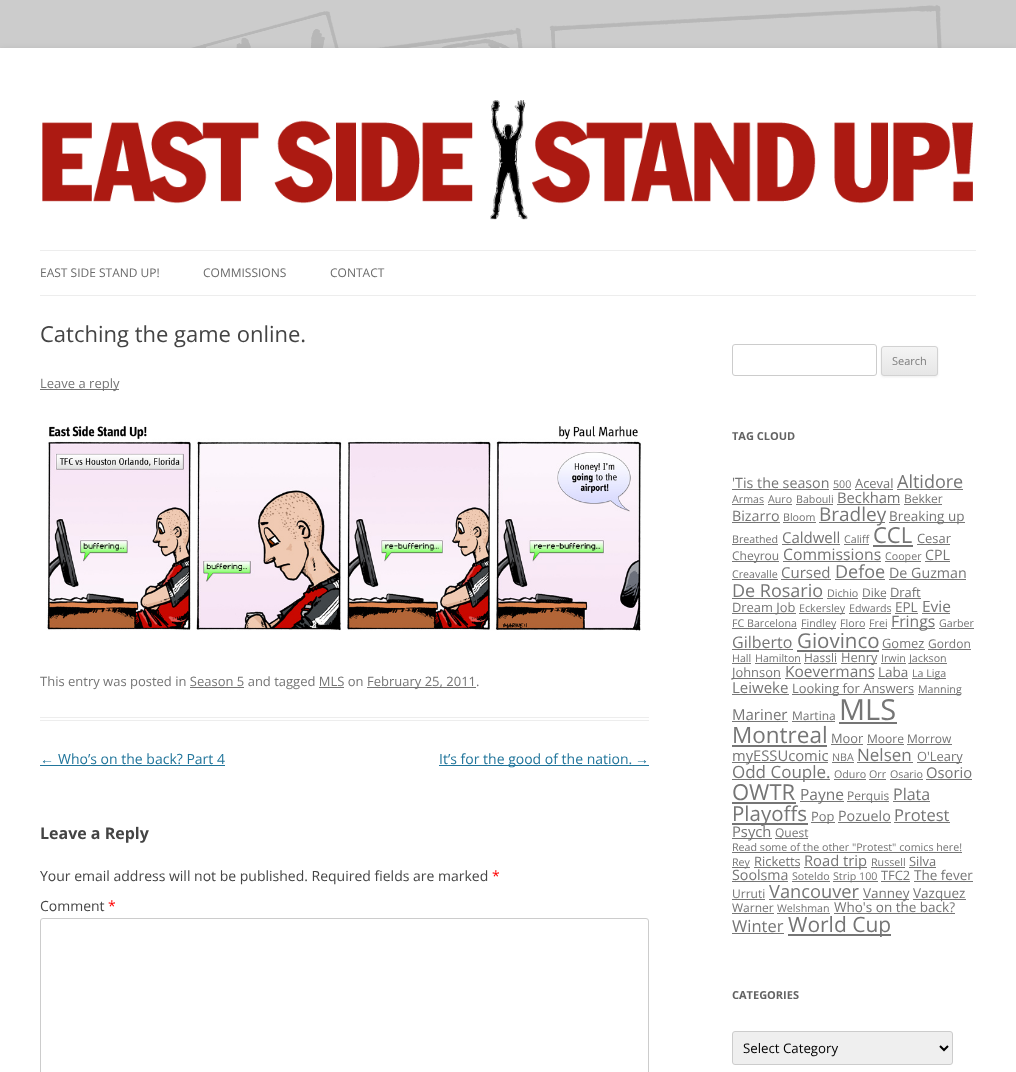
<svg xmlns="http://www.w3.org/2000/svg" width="1016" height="1072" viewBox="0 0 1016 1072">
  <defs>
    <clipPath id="clip1"><rect x="881" y="346" width="57" height="30" rx="3"/></clipPath>
    <linearGradient id="g1" gradientUnits="userSpaceOnUse" x1="910" y1="347" x2="910" y2="375"><stop offset="0" stop-color="rgb(244,244,244)"/><stop offset="1" stop-color="rgb(230,230,230)"/></linearGradient>
  </defs>
  <rect width="100%" height="100%" fill="rgb(255,255,255)"/>
  <image x="0" y="0" width="1016" height="48" href="pic1.png"/>
  <rect x="0" y="50" width="1016" height="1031" fill="rgba(100,100,100,0.3)" filter="blur(3px)"/>
  <rect x="0" y="48" width="1016" height="1024" fill="rgb(255,255,255)"/>
  <image x="42" y="100" width="931" height="120" href="pic2.png"/>
  <rect x="40" y="250" width="936" height="1" fill="rgb(237,237,237)"/>
  <rect x="40" y="295" width="936" height="1" fill="rgb(237,237,237)"/>
  <g font-family="Open Sans" font-size="12" fill="rgb(106,106,106)">
    <text x="40" y="277">EAST SIDE STAND UP!</text>
    <text x="203" y="277">COMMISSIONS</text>
    <text x="330" y="277">CONTACT</text>
  </g>
  <rect x="40" y="717" width="609" height="1" fill="rgb(237,237,237)"/>
  <rect x="40" y="720" width="609" height="1" fill="rgb(237,237,237)"/>
  <text x="40" y="342" font-family="Open Sans" font-size="22" fill="rgb(68,68,68)">Catching the game online.</text>
  <rect x="40" y="389" width="79" height="1" fill="rgb(117,117,117)"/>
  <text x="40" y="388" font-family="Open Sans" font-size="13" fill="rgb(117,117,117)">Leave a reply</text>
  <image x="46" y="426" width="595" height="205" href="pic3.png"/>
  <text x="40" y="686" font-family="Open Sans" font-size="13" fill="rgb(117,117,117)">This entry was posted in Season 5 and tagged MLS on</text>
  <rect x="367" y="687" width="109" height="1" fill="rgb(117,117,117)"/>
  <text x="367" y="686" font-family="Open Sans" font-size="13" fill="rgb(117,117,117)">February 25, 2011.</text>
  <rect x="190" y="687" width="54" height="1" fill="rgb(117,117,117)"/>
  <rect x="319" y="687" width="25" height="1" fill="rgb(117,117,117)"/>
  <text x="40" y="764" font-family="Liberation Sans" font-size="14" fill="rgb(33,117,155)">←</text>
  <rect x="40" y="765" width="185" height="1" fill="rgb(33,117,155)"/>
  <text x="58" y="764" font-family="Open Sans" font-size="14" fill="rgb(33,117,155)">Who’s on the back? Part 4</text>
  <rect x="439" y="765" width="210" height="1" fill="rgb(33,117,155)"/>
  <text x="439" y="764" font-family="Open Sans" font-size="14" fill="rgb(33,117,155)">It’s for the good of the nation.</text>
  <text x="635" y="764" font-family="Liberation Sans" font-size="14" fill="rgb(33,117,155)">→</text>
  <text x="40" y="839" font-family="Open Sans" font-size="16" font-weight="bold" fill="rgb(68,68,68)">Leave a Reply</text>
  <text x="40" y="881" font-family="Open Sans" font-size="14" fill="rgb(68,68,68)">Your email address will not be published. Required fields are marked</text>
  <text x="492" y="881" font-family="Open Sans" font-size="14" fill="rgb(255,0,0)">*</text>
  <text x="40" y="911" font-family="Open Sans" font-size="14" fill="rgb(68,68,68)">Comment</text>
  <text x="108" y="911" font-family="Open Sans" font-size="14" fill="rgb(255,0,0)">*</text>
  <rect x="40.5" y="918.5" width="608" height="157" rx="2.5" fill="none" stroke="rgb(204,204,204)"/>
  <rect x="732.5" y="344.5" width="144" height="31" rx="2.5" fill="none" stroke="rgb(204,204,204)"/>
  <rect x="881" y="347" width="57" height="30" rx="3" fill="rgba(64,64,64,0.1)" filter="blur(1px)"/>
  <g clip-path="url(#clip1)">
    <rect x="881" y="347" width="57" height="28" fill="url(#g1)"/>
  </g>
  <rect x="881.5" y="346.5" width="56" height="29" rx="2.5" fill="none" stroke="rgb(210,210,210)"/>
  <text x="892" y="365" font-family="Open Sans" font-size="11" fill="rgb(124,124,124)">Search</text>
  <text x="732" y="440" font-family="Open Sans" font-size="11" font-weight="bold" fill="rgb(99,99,99)">TAG CLOUD</text>
  <text x="732" y="488" font-family="Open Sans" font-size="14.25" fill="rgb(117,117,117)">'Tis the season</text>
  <rect x="732" y="489" width="97" height="1" fill="rgb(117,117,117)"/>
  <text x="833" y="488" font-family="Open Sans" font-size="10.7" fill="rgb(117,117,117)">500</text>
  <rect x="833" y="489" width="18" height="1" fill="rgb(117,117,117)"/>
  <text x="855" y="488" font-family="Open Sans" font-size="12.9" fill="rgb(117,117,117)">Aceval</text>
  <rect x="855" y="489" width="38" height="1" fill="rgb(117,117,117)"/>
  <text x="897" y="488" font-family="Open Sans" font-size="18" fill="rgb(117,117,117)">Altidore</text>
  <rect x="897" y="489" width="66" height="1" fill="rgb(117,117,117)"/>
  <text x="732" y="503" font-family="Open Sans" font-size="10.7" fill="rgb(117,117,117)">Armas</text>
  <rect x="732" y="504" width="32" height="1" fill="rgb(117,117,117)"/>
  <text x="768" y="503" font-family="Open Sans" font-size="10.7" fill="rgb(117,117,117)">Auro</text>
  <rect x="768" y="504" width="24" height="1" fill="rgb(117,117,117)"/>
  <text x="796" y="503" font-family="Open Sans" font-size="10.7" fill="rgb(117,117,117)">Babouli</text>
  <rect x="796" y="504" width="37" height="1" fill="rgb(117,117,117)"/>
  <text x="837" y="503" font-family="Open Sans" font-size="14.75" fill="rgb(117,117,117)">Beckham</text>
  <rect x="837" y="504" width="63" height="1" fill="rgb(117,117,117)"/>
  <text x="904" y="503" font-family="Open Sans" font-size="12" fill="rgb(117,117,117)">Bekker</text>
  <rect x="904" y="504" width="38" height="1" fill="rgb(117,117,117)"/>
  <text x="732" y="521" font-family="Open Sans" font-size="14.25" fill="rgb(117,117,117)">Bizarro</text>
  <rect x="732" y="522" width="48" height="1" fill="rgb(117,117,117)"/>
  <text x="783" y="521" font-family="Open Sans" font-size="10.7" fill="rgb(117,117,117)">Bloom</text>
  <rect x="783" y="522" width="33" height="1" fill="rgb(117,117,117)"/>
  <rect x="819" y="522" width="66" height="1" fill="rgb(117,117,117)"/>
  <text x="819" y="521" font-family="Open Sans" font-size="19" fill="rgb(117,117,117)">Bradley</text>
  <rect x="889" y="522" width="76" height="1" fill="rgb(117,117,117)"/>
  <text x="889" y="521" font-family="Open Sans" font-size="13.5" fill="rgb(117,117,117)">Breaking up</text>
  <text x="732" y="543" font-family="Open Sans" font-size="10.7" fill="rgb(117,117,117)">Breathed</text>
  <rect x="732" y="544" width="46" height="1" fill="rgb(117,117,117)"/>
  <text x="782" y="543" font-family="Open Sans" font-size="15" fill="rgb(117,117,117)">Caldwell</text>
  <rect x="782" y="544" width="58" height="1" fill="rgb(117,117,117)"/>
  <text x="844" y="543" font-family="Open Sans" font-size="10.7" fill="rgb(117,117,117)">Califf</text>
  <rect x="844" y="544" width="25" height="1" fill="rgb(117,117,117)"/>
  <text x="873" y="543" font-family="Open Sans" font-size="22" fill="rgb(117,117,117)">CCL</text>
  <rect x="873" y="545" width="40" height="2" fill="rgb(117,117,117)"/>
  <text x="917" y="543" font-family="Open Sans" font-size="12.9" fill="rgb(117,117,117)">Cesar</text>
  <rect x="917" y="544" width="33" height="1" fill="rgb(117,117,117)"/>
  <rect x="732" y="561" width="47" height="1" fill="rgb(117,117,117)"/>
  <text x="732" y="560" font-family="Open Sans" font-size="12" fill="rgb(117,117,117)">Cheyrou</text>
  <text x="783" y="560" font-family="Open Sans" font-size="15.75" fill="rgb(117,117,117)">Commissions</text>
  <rect x="783" y="561" width="98" height="1" fill="rgb(117,117,117)"/>
  <rect x="885" y="561" width="36" height="1" fill="rgb(117,117,117)"/>
  <text x="885" y="560" font-family="Open Sans" font-size="10.7" fill="rgb(117,117,117)">Cooper</text>
  <text x="925" y="560" font-family="Open Sans" font-size="14.25" fill="rgb(117,117,117)">CPL</text>
  <rect x="925" y="561" width="25" height="1" fill="rgb(117,117,117)"/>
  <text x="732" y="578" font-family="Open Sans" font-size="10.7" fill="rgb(117,117,117)">Creavalle</text>
  <rect x="732" y="579" width="46" height="1" fill="rgb(117,117,117)"/>
  <text x="781" y="578" font-family="Open Sans" font-size="15" fill="rgb(117,117,117)">Cursed</text>
  <rect x="781" y="579" width="50" height="1" fill="rgb(117,117,117)"/>
  <text x="835" y="578" font-family="Open Sans" font-size="18" fill="rgb(117,117,117)">Defoe</text>
  <rect x="835" y="579" width="50" height="1" fill="rgb(117,117,117)"/>
  <text x="889" y="578" font-family="Open Sans" font-size="14.25" fill="rgb(117,117,117)">De Guzman</text>
  <rect x="889" y="579" width="77" height="1" fill="rgb(117,117,117)"/>
  <text x="732" y="597" font-family="Open Sans" font-size="18" fill="rgb(117,117,117)">De Rosario</text>
  <rect x="732" y="598" width="91" height="1" fill="rgb(117,117,117)"/>
  <text x="827" y="597" font-family="Open Sans" font-size="10.7" fill="rgb(117,117,117)">Dichio</text>
  <rect x="827" y="598" width="31" height="1" fill="rgb(117,117,117)"/>
  <text x="862" y="597" font-family="Open Sans" font-size="12" fill="rgb(117,117,117)">Dike</text>
  <rect x="862" y="598" width="24" height="1" fill="rgb(117,117,117)"/>
  <text x="890" y="597" font-family="Open Sans" font-size="12.9" fill="rgb(117,117,117)">Draft</text>
  <rect x="890" y="598" width="31" height="1" fill="rgb(117,117,117)"/>
  <rect x="732" y="613" width="64" height="1" fill="rgb(117,117,117)"/>
  <text x="732" y="612" font-family="Open Sans" font-size="12.9" fill="rgb(117,117,117)">Dream Job</text>
  <rect x="799" y="613" width="46" height="1" fill="rgb(117,117,117)"/>
  <g font-family="Open Sans" font-size="10.7" fill="rgb(117,117,117)">
    <text x="799" y="612">Eckersley</text>
    <text x="849" y="612">Edwards</text>
  </g>
  <rect x="849" y="613" width="42" height="1" fill="rgb(117,117,117)"/>
  <text x="895" y="612" font-family="Open Sans" font-size="13.5" fill="rgb(117,117,117)">EPL</text>
  <rect x="895" y="613" width="23" height="1" fill="rgb(117,117,117)"/>
  <text x="922" y="612" font-family="Open Sans" font-size="15.5" fill="rgb(117,117,117)">Evie</text>
  <rect x="922" y="613" width="28" height="1" fill="rgb(117,117,117)"/>
  <text x="732" y="627" font-family="Open Sans" font-size="10.7" fill="rgb(117,117,117)">FC Barcelona</text>
  <rect x="732" y="628" width="65" height="1" fill="rgb(117,117,117)"/>
  <rect x="801" y="628" width="35" height="1" fill="rgb(117,117,117)"/>
  <g font-family="Open Sans" font-size="10.7" fill="rgb(117,117,117)">
    <text x="801" y="627">Findley</text>
    <text x="840" y="627">Floro</text>
  </g>
  <rect x="840" y="628" width="25" height="1" fill="rgb(117,117,117)"/>
  <text x="869" y="627" font-family="Open Sans" font-size="10.7" fill="rgb(117,117,117)">Frei</text>
  <rect x="869" y="628" width="18" height="1" fill="rgb(117,117,117)"/>
  <rect x="891" y="628" width="44" height="1" fill="rgb(117,117,117)"/>
  <text x="891" y="627" font-family="Open Sans" font-size="15.75" fill="rgb(117,117,117)">Frings</text>
  <text x="939" y="627" font-family="Open Sans" font-size="10.7" fill="rgb(117,117,117)">Garber</text>
  <rect x="939" y="628" width="35" height="1" fill="rgb(117,117,117)"/>
  <text x="732" y="648" font-family="Open Sans" font-size="16" fill="rgb(117,117,117)">Gilberto</text>
  <rect x="732" y="649" width="61" height="1" fill="rgb(117,117,117)"/>
  <text x="797" y="648" font-family="Open Sans" font-size="20.5" fill="rgb(117,117,117)">Giovinco</text>
  <rect x="797" y="650" width="82" height="2" fill="rgb(117,117,117)"/>
  <text x="882" y="648" font-family="Open Sans" font-size="12.9" fill="rgb(117,117,117)">Gomez</text>
  <rect x="882" y="649" width="43" height="1" fill="rgb(117,117,117)"/>
  <text x="928" y="648" font-family="Open Sans" font-size="12" fill="rgb(117,117,117)">Gordon</text>
  <rect x="928" y="649" width="43" height="1" fill="rgb(117,117,117)"/>
  <text x="732" y="662" font-family="Open Sans" font-size="10.7" fill="rgb(117,117,117)">Hall</text>
  <rect x="732" y="663" width="19" height="1" fill="rgb(117,117,117)"/>
  <text x="755" y="662" font-family="Open Sans" font-size="10.7" fill="rgb(117,117,117)">Hamilton</text>
  <rect x="755" y="663" width="46" height="1" fill="rgb(117,117,117)"/>
  <text x="804" y="662" font-family="Open Sans" font-size="12" fill="rgb(117,117,117)">Hassli</text>
  <rect x="804" y="663" width="33" height="1" fill="rgb(117,117,117)"/>
  <rect x="841" y="663" width="36" height="1" fill="rgb(117,117,117)"/>
  <text x="841" y="662" font-family="Open Sans" font-size="12.9" fill="rgb(117,117,117)">Henry</text>
  <text x="881" y="662" font-family="Open Sans" font-size="10.7" fill="rgb(117,117,117)">Irwin</text>
  <rect x="881" y="663" width="25" height="1" fill="rgb(117,117,117)"/>
  <rect x="909" y="663" width="38" height="1" fill="rgb(117,117,117)"/>
  <text x="909" y="662" font-family="Open Sans" font-size="10.7" fill="rgb(117,117,117)">Jackson</text>
  <rect x="732" y="678" width="49" height="1" fill="rgb(117,117,117)"/>
  <text x="732" y="677" font-family="Open Sans" font-size="12.9" fill="rgb(117,117,117)">Johnson</text>
  <text x="785" y="677" font-family="Open Sans" font-size="15.5" fill="rgb(117,117,117)">Koevermans</text>
  <rect x="785" y="678" width="89" height="1" fill="rgb(117,117,117)"/>
  <text x="878" y="677" font-family="Open Sans" font-size="13.5" fill="rgb(117,117,117)">Laba</text>
  <rect x="878" y="678" width="30" height="1" fill="rgb(117,117,117)"/>
  <rect x="912" y="678" width="34" height="1" fill="rgb(117,117,117)"/>
  <text x="912" y="677" font-family="Open Sans" font-size="10.7" fill="rgb(117,117,117)">La Liga</text>
  <text x="732" y="693" font-family="Open Sans" font-size="15" fill="rgb(117,117,117)">Leiweke</text>
  <rect x="732" y="694" width="57" height="1" fill="rgb(117,117,117)"/>
  <rect x="792" y="694" width="122" height="1" fill="rgb(117,117,117)"/>
  <text x="792" y="693" font-family="Open Sans" font-size="12.9" fill="rgb(117,117,117)">Looking for Answers</text>
  <rect x="918" y="694" width="43" height="1" fill="rgb(117,117,117)"/>
  <text x="918" y="693" font-family="Open Sans" font-size="10.7" fill="rgb(117,117,117)">Manning</text>
  <text x="732" y="720" font-family="Open Sans" font-size="15" fill="rgb(117,117,117)">Mariner</text>
  <rect x="732" y="721" width="56" height="1" fill="rgb(117,117,117)"/>
  <text x="792" y="720" font-family="Open Sans" font-size="12" fill="rgb(117,117,117)">Martina</text>
  <rect x="792" y="721" width="43" height="1" fill="rgb(117,117,117)"/>
  <text x="839" y="720" font-family="Open Sans" font-size="29" fill="rgb(117,117,117)">MLS</text>
  <rect x="839" y="722" width="58" height="2" fill="rgb(117,117,117)"/>
  <text x="732" y="743" font-family="Open Sans" font-size="22.5" fill="rgb(117,117,117)">Montreal</text>
  <rect x="732" y="745" width="95" height="2" fill="rgb(117,117,117)"/>
  <text x="831" y="743" font-family="Open Sans" font-size="12.9" fill="rgb(117,117,117)">Moor</text>
  <rect x="831" y="744" width="32" height="1" fill="rgb(117,117,117)"/>
  <text x="867" y="743" font-family="Open Sans" font-size="12" fill="rgb(117,117,117)">Moore</text>
  <rect x="867" y="744" width="37" height="1" fill="rgb(117,117,117)"/>
  <text x="907" y="743" font-family="Open Sans" font-size="12" fill="rgb(117,117,117)">Morrow</text>
  <rect x="907" y="744" width="45" height="1" fill="rgb(117,117,117)"/>
  <rect x="732" y="762" width="96" height="1" fill="rgb(117,117,117)"/>
  <text x="732" y="761" font-family="Open Sans" font-size="14.75" fill="rgb(117,117,117)">myESSUcomic</text>
  <text x="832" y="761" font-family="Open Sans" font-size="10.7" fill="rgb(117,117,117)">NBA</text>
  <rect x="832" y="762" width="22" height="1" fill="rgb(117,117,117)"/>
  <text x="857" y="761" font-family="Open Sans" font-size="17" fill="rgb(117,117,117)">Nelsen</text>
  <rect x="857" y="762" width="56" height="1" fill="rgb(117,117,117)"/>
  <rect x="917" y="762" width="45" height="1" fill="rgb(117,117,117)"/>
  <text x="917" y="761" font-family="Open Sans" font-size="12.9" fill="rgb(117,117,117)">O'Leary</text>
  <rect x="732" y="779" width="98" height="1" fill="rgb(117,117,117)"/>
  <text x="732" y="778" font-family="Open Sans" font-size="17" fill="rgb(117,117,117)">Odd Couple.</text>
  <text x="834" y="778" font-family="Open Sans" font-size="10.7" fill="rgb(117,117,117)">Oduro</text>
  <rect x="834" y="779" width="32" height="1" fill="rgb(117,117,117)"/>
  <text x="869" y="778" font-family="Open Sans" font-size="10.7" fill="rgb(117,117,117)">Orr</text>
  <rect x="869" y="779" width="17" height="1" fill="rgb(117,117,117)"/>
  <text x="890" y="778" font-family="Open Sans" font-size="10.7" fill="rgb(117,117,117)">Osario</text>
  <rect x="890" y="779" width="33" height="1" fill="rgb(117,117,117)"/>
  <text x="926" y="778" font-family="Open Sans" font-size="14.75" fill="rgb(117,117,117)">Osorio</text>
  <rect x="926" y="779" width="46" height="1" fill="rgb(117,117,117)"/>
  <text x="732" y="800" font-family="Open Sans" font-size="22" fill="rgb(117,117,117)">OWTR</text>
  <rect x="732" y="802" width="64" height="2" fill="rgb(117,117,117)"/>
  <rect x="800" y="801" width="44" height="1" fill="rgb(117,117,117)"/>
  <text x="800" y="800" font-family="Open Sans" font-size="15.5" fill="rgb(117,117,117)">Payne</text>
  <rect x="847" y="801" width="42" height="1" fill="rgb(117,117,117)"/>
  <text x="847" y="800" font-family="Open Sans" font-size="12" fill="rgb(117,117,117)">Perquis</text>
  <text x="893" y="800" font-family="Open Sans" font-size="16" fill="rgb(117,117,117)">Plata</text>
  <rect x="893" y="801" width="37" height="1" fill="rgb(117,117,117)"/>
  <rect x="732" y="823" width="76" height="2" fill="rgb(117,117,117)"/>
  <text x="732" y="821" font-family="Open Sans" font-size="20.5" fill="rgb(117,117,117)">Playoffs</text>
  <rect x="811" y="822" width="24" height="1" fill="rgb(117,117,117)"/>
  <text x="811" y="821" font-family="Open Sans" font-size="12.9" fill="rgb(117,117,117)">Pop</text>
  <text x="838" y="821" font-family="Open Sans" font-size="14.25" fill="rgb(117,117,117)">Pozuelo</text>
  <rect x="838" y="822" width="53" height="1" fill="rgb(117,117,117)"/>
  <text x="894" y="821" font-family="Open Sans" font-size="16.5" fill="rgb(117,117,117)">Protest</text>
  <rect x="894" y="822" width="56" height="1" fill="rgb(117,117,117)"/>
  <rect x="732" y="838" width="40" height="1" fill="rgb(117,117,117)"/>
  <text x="732" y="837" font-family="Open Sans" font-size="14.75" fill="rgb(117,117,117)">Psych</text>
  <rect x="775" y="838" width="33" height="1" fill="rgb(117,117,117)"/>
  <text x="775" y="837" font-family="Open Sans" font-size="12" fill="rgb(117,117,117)">Quest</text>
  <text x="732" y="851" font-family="Open Sans" font-size="10.7" fill="rgb(117,117,117)">Read some of the other "Protest" comics here!</text>
  <rect x="732" y="852" width="230" height="1" fill="rgb(117,117,117)"/>
  <rect x="732" y="867" width="18" height="1" fill="rgb(117,117,117)"/>
  <text x="732" y="866" font-family="Open Sans" font-size="10.7" fill="rgb(117,117,117)">Rey</text>
  <text x="754" y="866" font-family="Open Sans" font-size="12.9" fill="rgb(117,117,117)">Ricketts</text>
  <rect x="754" y="867" width="46" height="1" fill="rgb(117,117,117)"/>
  <rect x="804" y="867" width="63" height="1" fill="rgb(117,117,117)"/>
  <text x="804" y="866" font-family="Open Sans" font-size="14.75" fill="rgb(117,117,117)">Road trip</text>
  <text x="871" y="866" font-family="Open Sans" font-size="10.7" fill="rgb(117,117,117)">Russell</text>
  <rect x="871" y="867" width="34" height="1" fill="rgb(117,117,117)"/>
  <text x="909" y="866" font-family="Open Sans" font-size="12.9" fill="rgb(117,117,117)">Silva</text>
  <rect x="909" y="867" width="27" height="1" fill="rgb(117,117,117)"/>
  <text x="732" y="880" font-family="Open Sans" font-size="14.25" fill="rgb(117,117,117)">Soolsma</text>
  <rect x="732" y="881" width="56" height="1" fill="rgb(117,117,117)"/>
  <text x="792" y="880" font-family="Open Sans" font-size="10.7" fill="rgb(117,117,117)">Soteldo</text>
  <rect x="792" y="881" width="38" height="1" fill="rgb(117,117,117)"/>
  <rect x="833" y="881" width="45" height="1" fill="rgb(117,117,117)"/>
  <text x="833" y="880" font-family="Open Sans" font-size="10.7" fill="rgb(117,117,117)">Strip 100</text>
  <text x="881" y="880" font-family="Open Sans" font-size="12.9" fill="rgb(117,117,117)">TFC2</text>
  <rect x="881" y="881" width="29" height="1" fill="rgb(117,117,117)"/>
  <text x="914" y="880" font-family="Open Sans" font-size="13.5" fill="rgb(117,117,117)">The fever</text>
  <rect x="914" y="881" width="59" height="1" fill="rgb(117,117,117)"/>
  <text x="732" y="898" font-family="Open Sans" font-size="12" fill="rgb(117,117,117)">Urruti</text>
  <rect x="732" y="899" width="33" height="1" fill="rgb(117,117,117)"/>
  <text x="769" y="898" font-family="Open Sans" font-size="18.25" fill="rgb(117,117,117)">Vancouver</text>
  <rect x="769" y="899" width="90" height="1" fill="rgb(117,117,117)"/>
  <rect x="863" y="899" width="46" height="1" fill="rgb(117,117,117)"/>
  <text x="863" y="898" font-family="Open Sans" font-size="13.5" fill="rgb(117,117,117)">Vanney</text>
  <rect x="913" y="899" width="53" height="1" fill="rgb(117,117,117)"/>
  <text x="913" y="898" font-family="Open Sans" font-size="13.5" fill="rgb(117,117,117)">Vazquez</text>
  <text x="732" y="912" font-family="Open Sans" font-size="12" fill="rgb(117,117,117)">Warner</text>
  <rect x="732" y="913" width="42" height="1" fill="rgb(117,117,117)"/>
  <text x="777" y="912" font-family="Open Sans" font-size="10.7" fill="rgb(117,117,117)">Welshman</text>
  <rect x="777" y="913" width="53" height="1" fill="rgb(117,117,117)"/>
  <text x="834" y="912" font-family="Open Sans" font-size="13.5" fill="rgb(117,117,117)">Who's on the back?</text>
  <rect x="834" y="913" width="121" height="1" fill="rgb(117,117,117)"/>
  <text x="732" y="932" font-family="Open Sans" font-size="16.5" fill="rgb(117,117,117)">Winter</text>
  <rect x="732" y="933" width="52" height="1" fill="rgb(117,117,117)"/>
  <rect x="788" y="934" width="103" height="2" fill="rgb(117,117,117)"/>
  <text x="788" y="932" font-family="Open Sans" font-size="21" fill="rgb(117,117,117)">World Cup</text>
  <text x="732" y="999" font-family="Open Sans" font-size="11" font-weight="bold" fill="rgb(99,99,99)">CATEGORIES</text>
  <rect x="732.5" y="1031.5" width="220" height="33" rx="2.5" fill="rgb(239,239,239)" stroke="rgb(204,204,204)"/>
  <path d="M940 1046L944 1050L948 1046" fill="none" stroke="rgb(0,0,0)" stroke-width="2"/>
  <text x="743" y="1053" font-family="Open Sans" font-size="13.25" fill="rgb(0,0,0)">Select Category</text>
</svg>
